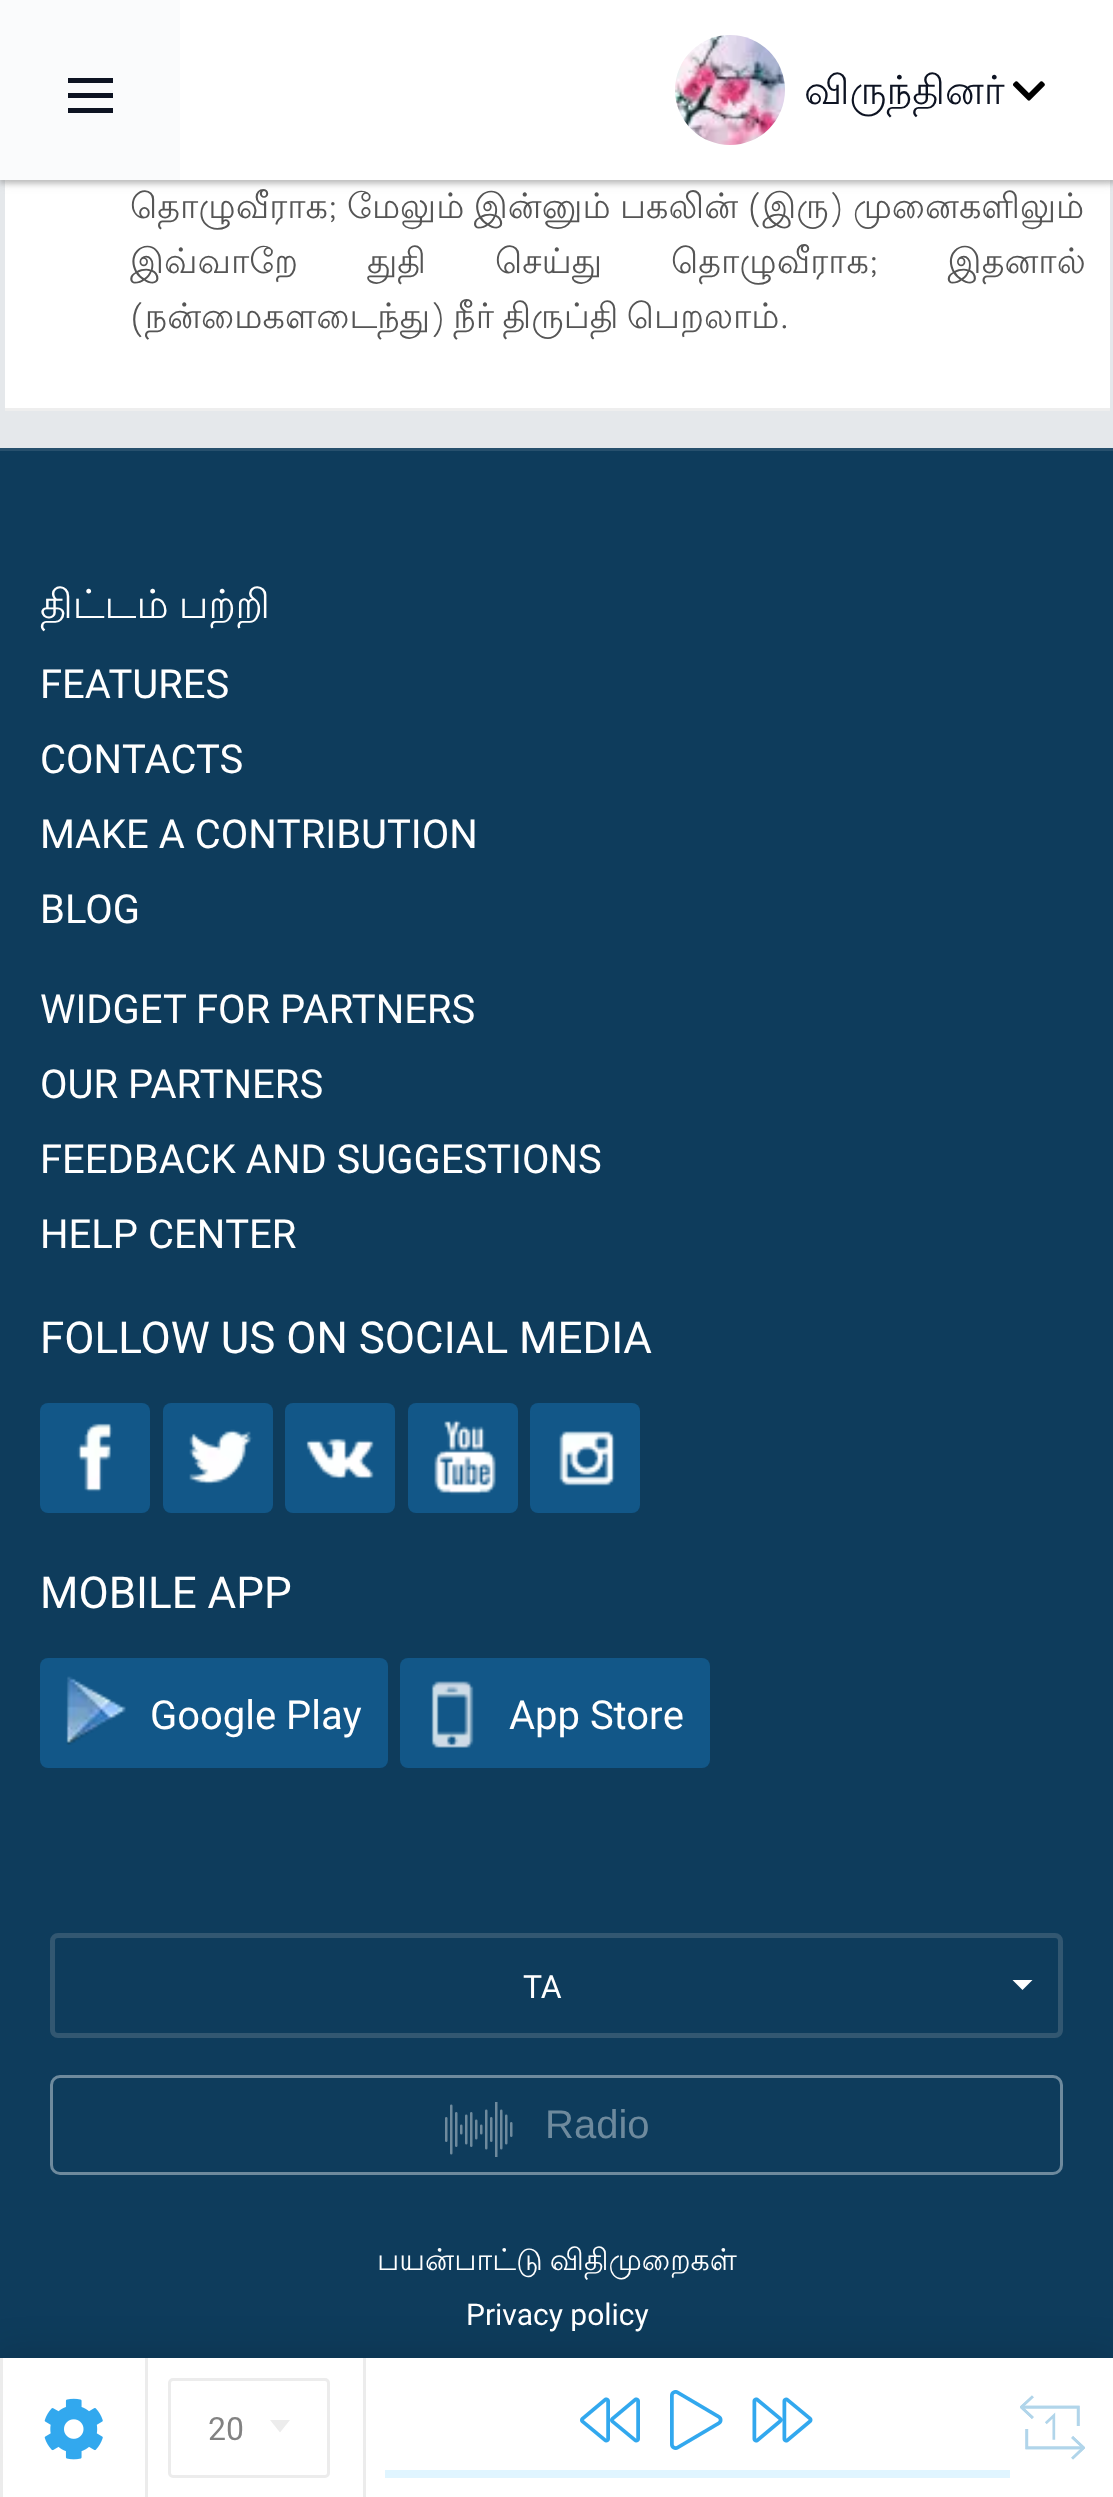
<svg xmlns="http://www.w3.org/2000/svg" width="1113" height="2497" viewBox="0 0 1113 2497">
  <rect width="100%" height="100%" fill="rgb(229,232,235)"/>
  <rect x="5" y="180" width="1105" height="228" fill="rgb(255,255,255)"/>
  <rect x="0" y="3" width="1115" height="180" fill="rgba(0,0,0,0.2)" filter="blur(2.5px)"/>
  <rect x="0" y="3" width="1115" height="180" fill="rgba(170,170,170,0.5)" filter="blur(5px)"/>
  <rect x="180" y="0" width="933" height="180" fill="rgb(255,255,255)"/>
  <rect x="0" y="0" width="180" height="180" fill="rgb(250,251,252)"/>
  <rect x="68" y="78" width="45" height="5" fill="rgb(13,19,34)"/>
  <rect x="68" y="93" width="45" height="5" fill="rgb(13,19,34)"/>
  <rect x="68" y="108" width="45" height="5" fill="rgb(13,19,34)"/>
  <image x="675" y="35" width="110" height="110" href="pic1.png"/>
  <text x="804" y="104" font-family="Lohit Tamil" font-size="40" fill="rgb(13,19,34)">விருந்தினர்</text>
  <image x="1013" y="81" width="32" height="20" href="pic2.png"/>
  <rect x="5" y="408" width="1105" height="3" fill="rgb(238,238,238)"/>
  <g font-family="Lohit Tamil" font-size="35" fill="rgb(85,85,85)">
    <text>
      <tspan x="130" y="218" word-spacing="-1">தொழுவீராக; மேலும் இன்னும் பகலின் (இரு) முனைகளிலும்</tspan>
      <tspan x="130" y="273" word-spacing="58.5">இவ்வாறே துதி செய்து தொழுவீராக; இதனால்</tspan>
      <tspan x="130" y="328" word-spacing="-2">(நன்மைகளடைந்து) நீர் திருப்தி பெறலாம்.</tspan>
    </text>
  </g>
  <rect x="0" y="451" width="1113" height="1907" fill="rgb(14,60,92)"/>
  <rect x="-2" y="2355" width="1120" height="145" fill="rgba(0,0,0,0.15)" filter="blur(19px)"/>
  <rect x="3" y="2358" width="1110" height="139" fill="rgb(255,255,255)"/>
  <rect x="145" y="2358" width="3" height="139" fill="rgb(236,236,236)"/>
  <rect x="0" y="2358" width="3" height="139" fill="rgb(236,236,236)"/>
  <image x="44" y="2398" width="59" height="62" href="pic3.png"/>
  <rect x="169.5" y="2379.5" width="159" height="97" rx="3.5" fill="none" stroke="rgb(236,236,236)" stroke-width="3"/>
  <text x="208" y="2440" font-family="Roboto" font-size="32" fill="rgb(130,130,130)">20</text>
  <path d="M270 2420H290L280 2432.5Z" fill="rgb(236,236,236)"/>
  <rect x="363" y="2358" width="3" height="139" fill="rgb(236,236,236)"/>
  <image x="580" y="2397" width="60" height="46" href="pic4.png"/>
  <image x="670" y="2390" width="53" height="60" href="pic5.png"/>
  <image x="752" y="2397" width="61" height="46" href="pic6.png"/>
  <rect x="385" y="2470" width="625" height="8" fill="rgb(224,245,255)"/>
  <image x="1020" y="2395" width="65" height="65" href="pic7.png"/>
  <rect x="0" y="448" width="1113" height="3" fill="rgb(39,80,109)"/>
  <text x="40" y="618" word-spacing="-2" font-family="Lohit Tamil" font-size="40" fill="rgb(255,255,255)">திட்டம் பற்றி</text>
  <g font-family="Roboto" font-size="40" fill="rgb(255,255,255)">
    <text>
      <tspan x="40" y="698">FEATURES</tspan>
      <tspan x="40" y="773">CONTACTS</tspan>
      <tspan x="40" y="848">MAKE A CONTRIBUTION</tspan>
      <tspan x="40" y="923">BLOG</tspan>
    </text>
    <text>
      <tspan x="40" y="1023">WIDGET FOR PARTNERS</tspan>
      <tspan x="40" y="1098">OUR PARTNERS</tspan>
      <tspan x="40" y="1173">FEEDBACK AND SUGGESTIONS</tspan>
      <tspan x="40" y="1248">HELP CENTER</tspan>
    </text>
  </g>
  <text x="40" y="1353" font-family="Roboto" font-size="44" fill="rgb(255,255,255)">FOLLOW US ON SOCIAL MEDIA</text>
  <rect x="40" y="1403" width="110" height="110" rx="8" fill="rgb(18,87,136)"/>
  <image x="77" y="1423" width="36" height="69" href="pic8.png"/>
  <rect x="163" y="1403" width="110" height="110" rx="8" fill="rgb(18,87,136)"/>
  <image x="189" y="1429" width="64" height="56" href="pic9.png"/>
  <rect x="285" y="1403" width="110" height="110" rx="8" fill="rgb(18,87,136)"/>
  <image x="306" y="1438" width="68" height="42" href="pic10.png"/>
  <rect x="408" y="1403" width="110" height="110" rx="8" fill="rgb(18,87,136)"/>
  <image x="434" y="1419" width="62" height="76" href="pic11.png"/>
  <rect x="530" y="1403" width="110" height="110" rx="8" fill="rgb(18,87,136)"/>
  <image x="559" y="1431" width="56" height="55" href="pic12.png"/>
  <text x="40" y="1608" font-family="Roboto" font-size="44" fill="rgb(255,255,255)">MOBILE APP</text>
  <rect x="40" y="1658" width="348" height="110" rx="8" fill="rgb(18,87,136)"/>
  <image x="66" y="1676" width="60" height="69" href="pic13.png"/>
  <text x="150" y="1729" font-family="Roboto" font-size="40" fill="rgb(255,255,255)">Google Play</text>
  <rect x="400" y="1658" width="310" height="110" rx="8" fill="rgb(18,87,136)"/>
  <image x="431" y="1681" width="43" height="67" href="pic14.png"/>
  <text x="509" y="1729" font-family="Roboto" font-size="40" fill="rgb(255,255,255)">App Store</text>
  <rect x="52.5" y="1935.5" width="1008" height="100" rx="5.5" fill="none" stroke="rgb(50,87,113)" stroke-width="5"/>
  <text x="523" y="1998" font-family="Roboto" font-size="32" fill="rgb(255,255,255)">TA</text>
  <path d="M1012.5 1980H1032.5L1022.5 1990Z" fill="rgb(255,255,255)"/>
  <rect x="51.5" y="2076.5" width="1010" height="97" rx="8.5" fill="none" stroke="rgb(110,138,157)" stroke-width="3"/>
  <image x="445" y="2102" width="68" height="55" href="pic15.png"/>
  <text x="545" y="2138" font-family="Liberation Sans" font-size="40" fill="rgb(110,138,157)">Radio</text>
  <text x="377" y="2270" word-spacing="-2" font-family="Lohit Tamil" font-size="30" fill="rgb(255,255,255)">பயன்பாட்டு விதிமுறைகள்</text>
  <text x="466" y="2325" font-family="Roboto" font-size="30" fill="rgb(255,255,255)">Privacy policy</text>
</svg>
